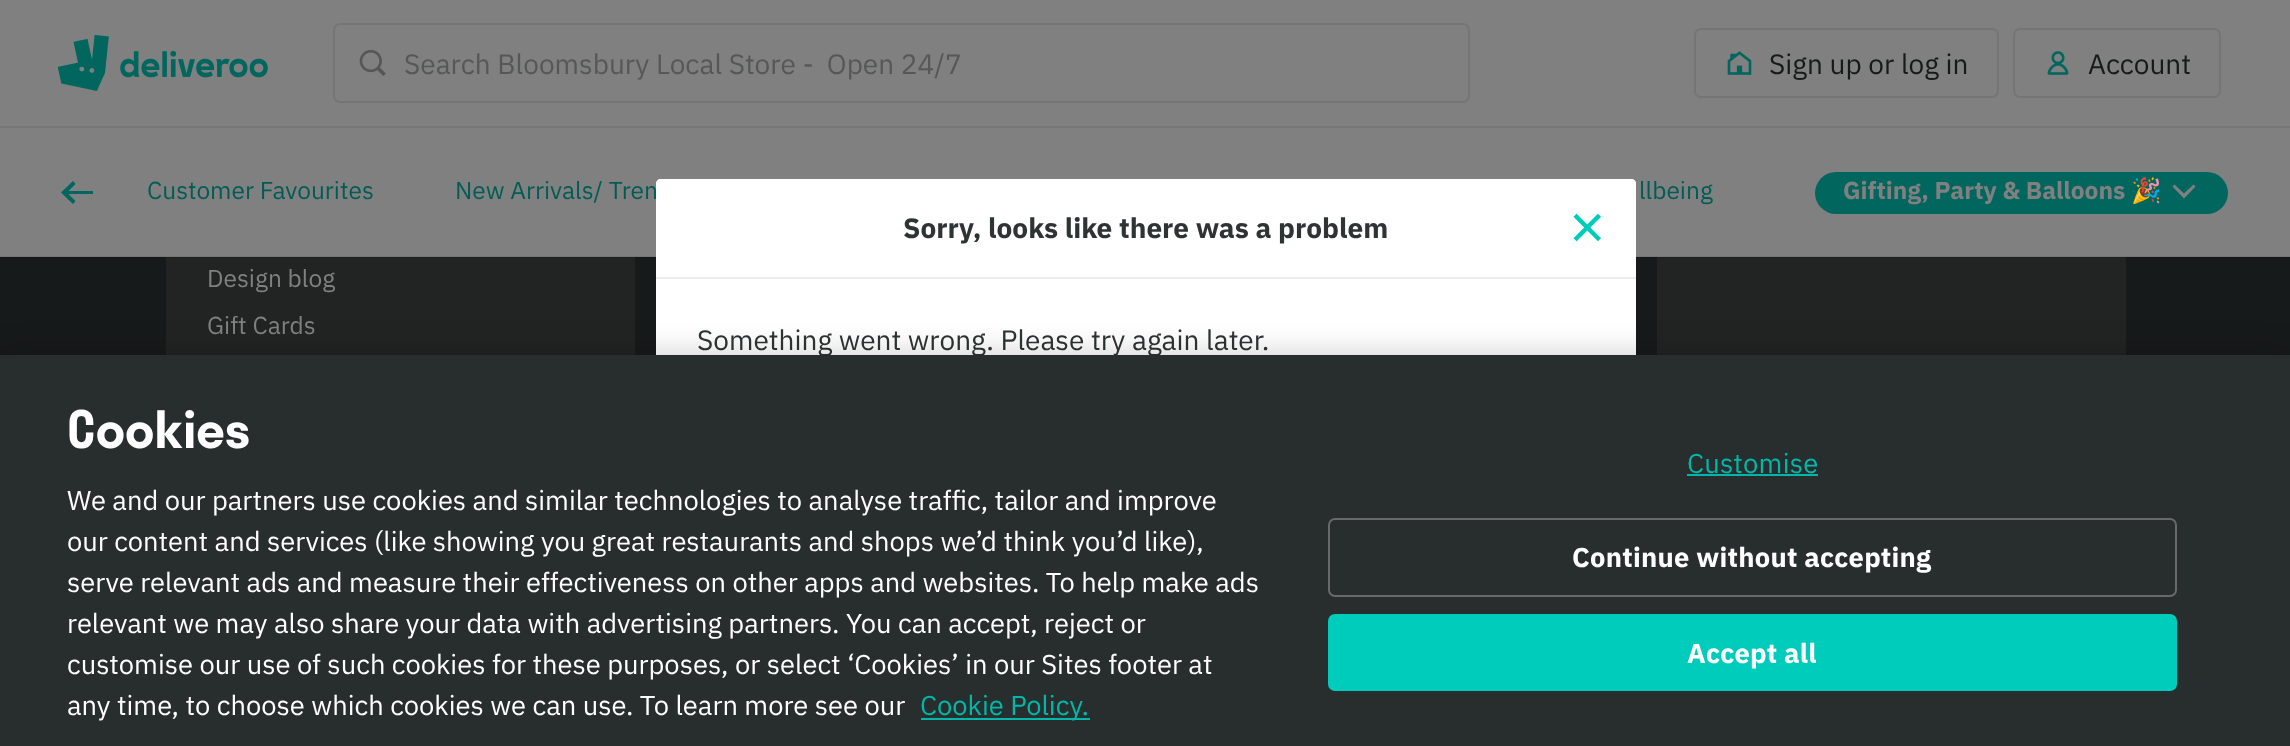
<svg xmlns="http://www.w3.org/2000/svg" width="2290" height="746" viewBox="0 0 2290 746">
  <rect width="100%" height="100%" fill="rgb(23,26,26)"/>
  <rect x="0" y="0" width="2290" height="126" fill="rgb(128,128,128)"/>
  <rect x="0" y="126" width="2290" height="2" fill="rgb(118,118,118)"/>
  <image x="58" y="35" width="210" height="56" href="pic1.png"/>
  <rect x="334" y="24" width="1135" height="78" rx="6" fill="none" stroke="rgb(116,118,118)" stroke-width="2"/>
  <image x="359" y="49" width="27" height="27" href="pic2.png"/>
  <text x="404" y="74" font-family="IBM Plex Sans" font-size="28" fill="rgb(86,87,87)" xml:space="preserve">Search Bloomsbury Local Store -  Open 24/7</text>
  <rect x="1695" y="29" width="303" height="68" rx="6" fill="none" stroke="rgb(116,118,118)" stroke-width="2"/>
  <image x="1727" y="51" width="25" height="24" href="pic3.png"/>
  <text x="1769" y="74" font-family="IBM Plex Sans" font-size="28" fill="rgb(23,26,26)">Sign up or log in</text>
  <rect x="2014" y="29" width="206" height="68" rx="6" fill="none" stroke="rgb(116,118,118)" stroke-width="2"/>
  <image x="2047" y="51" width="22" height="24" href="pic4.png"/>
  <text x="2088" y="74" font-family="IBM Plex Sans" font-size="28" fill="rgb(23,26,26)">Account</text>
  <rect x="0" y="128" width="2290" height="129" fill="rgb(128,128,128)"/>
  <rect x="166" y="257" width="469" height="98" fill="rgb(34,36,36)"/>
  <rect x="1657" y="257" width="469" height="98" fill="rgb(34,36,36)"/>
  <rect x="0" y="256" width="2290" height="2" fill="rgba(0,0,0,0.08)"/>
  <path d="M73 181L75.5 184L68.5 191H93V194H68.5L75.5 201L73 204L61 192.5Z" fill="rgb(0,102,94)"/>
  <g font-family="IBM Plex Sans" font-size="24.5" fill="rgb(0,92,85)">
    <text x="147" y="199">Customer Favourites</text>
    <text x="455" y="199">New Arrivals/ Tren</text>
    <text x="1639" y="199">llbeing</text>
  </g>
  <rect x="1815" y="172" width="413" height="42" rx="21" fill="rgb(0,102,94)"/>
  <text x="1843" y="199" font-family="IBM Plex Sans" font-size="24.5" font-weight="bold" fill="rgb(128,128,128)">Gifting, Party &amp; Balloons</text>
  <text x="2131" y="199" font-family="Noto Color Emoji" font-size="24.5" font-weight="bold" fill="rgb(128,128,128)">🎉</text>
  <path d="M2174.5 184.5L2172.5 186.5L2184 198.5L2195.5 186.5L2193.5 184.5L2184 193.5Z" fill="rgb(128,128,128)"/>
  <g font-family="IBM Plex Sans" font-size="24.5" fill="rgb(128,128,128)">
    <text>
      <tspan x="207" y="287">Design blog</tspan>
      <tspan x="207" y="334">Gift Cards</tspan>
    </text>
  </g>
  <rect x="656" y="179" width="980" height="390" rx="5" fill="rgb(255,255,255)"/>
  <path d="M661 179H1631C1634 179 1636 181 1636 184V278H656V184C656 181 658 179 661 179Z" fill="rgb(255,255,255)"/>
  <rect x="656" y="277" width="980" height="2" fill="rgb(235,235,235)"/>
  <text x="903" y="238" font-family="IBM Plex Sans" font-size="28" font-weight="bold" fill="rgb(46,51,51)">Sorry, looks like there was a problem</text>
  <image x="1573" y="213" width="28" height="29" href="pic5.png"/>
  <text x="697" y="350" font-family="IBM Plex Sans" font-size="28" fill="rgb(46,51,51)">Something went wrong. Please try again later.</text>
  <rect x="0" y="355" width="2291" height="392" fill="rgba(0,0,0,0.2)" filter="blur(16px)"/>
  <rect x="0" y="355" width="2290" height="391" fill="rgb(40,45,45)"/>
  <text x="67" y="448" font-family="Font" font-size="50.5" font-weight="600" fill="rgb(255,255,255)">Cookies</text>
  <g font-family="IBM Plex Sans" font-size="27.3" fill="rgb(255,255,255)">
    <text>
      <tspan x="67" y="510">We and our partners use cookies and similar technologies to analyse traffic, tailor and improve</tspan>
      <tspan x="67" y="551">our content and services (like showing you great restaurants and shops we’d think you’d like),</tspan>
      <tspan x="67" y="592">serve relevant ads and measure their effectiveness on other apps and websites. To help make ads</tspan>
      <tspan x="67" y="633">relevant we may also share your data with advertising partners. You can accept, reject or</tspan>
      <tspan x="67" y="674">customise our use of such cookies for these purposes, or select ‘Cookies’ in our Sites footer at</tspan>
      <tspan x="67" y="715">any time, to choose which cookies we can use. To learn more see our</tspan>
    </text>
  </g>
  <rect x="921" y="718" width="169" height="2" fill="rgb(0,184,169)"/>
  <text x="920" y="715" font-family="IBM Plex Sans" font-size="27.3" fill="rgb(0,184,169)">Cookie Policy.</text>
  <text x="1687" y="473" font-family="IBM Plex Sans" font-size="27.3" letter-spacing="0.25" fill="rgb(0,184,169)">Customise</text>
  <rect x="1687" y="474" width="131" height="2" fill="rgb(0,184,169)"/>
  <rect x="1329" y="519" width="847" height="77" rx="6" fill="none" stroke="rgb(105,105,105)" stroke-width="2"/>
  <text x="1572" y="567" font-family="IBM Plex Sans" font-size="27.3" font-weight="bold" letter-spacing="0.25" fill="rgb(255,255,255)">Continue without accepting</text>
  <rect x="1329" y="615" width="847" height="75" rx="6" fill="rgb(0,204,188)" stroke="rgb(0,204,188)" stroke-width="2"/>
  <text x="1687" y="663" font-family="IBM Plex Sans" font-size="27.3" font-weight="bold" letter-spacing="0.25" fill="rgb(255,255,255)">Accept all</text>
</svg>
